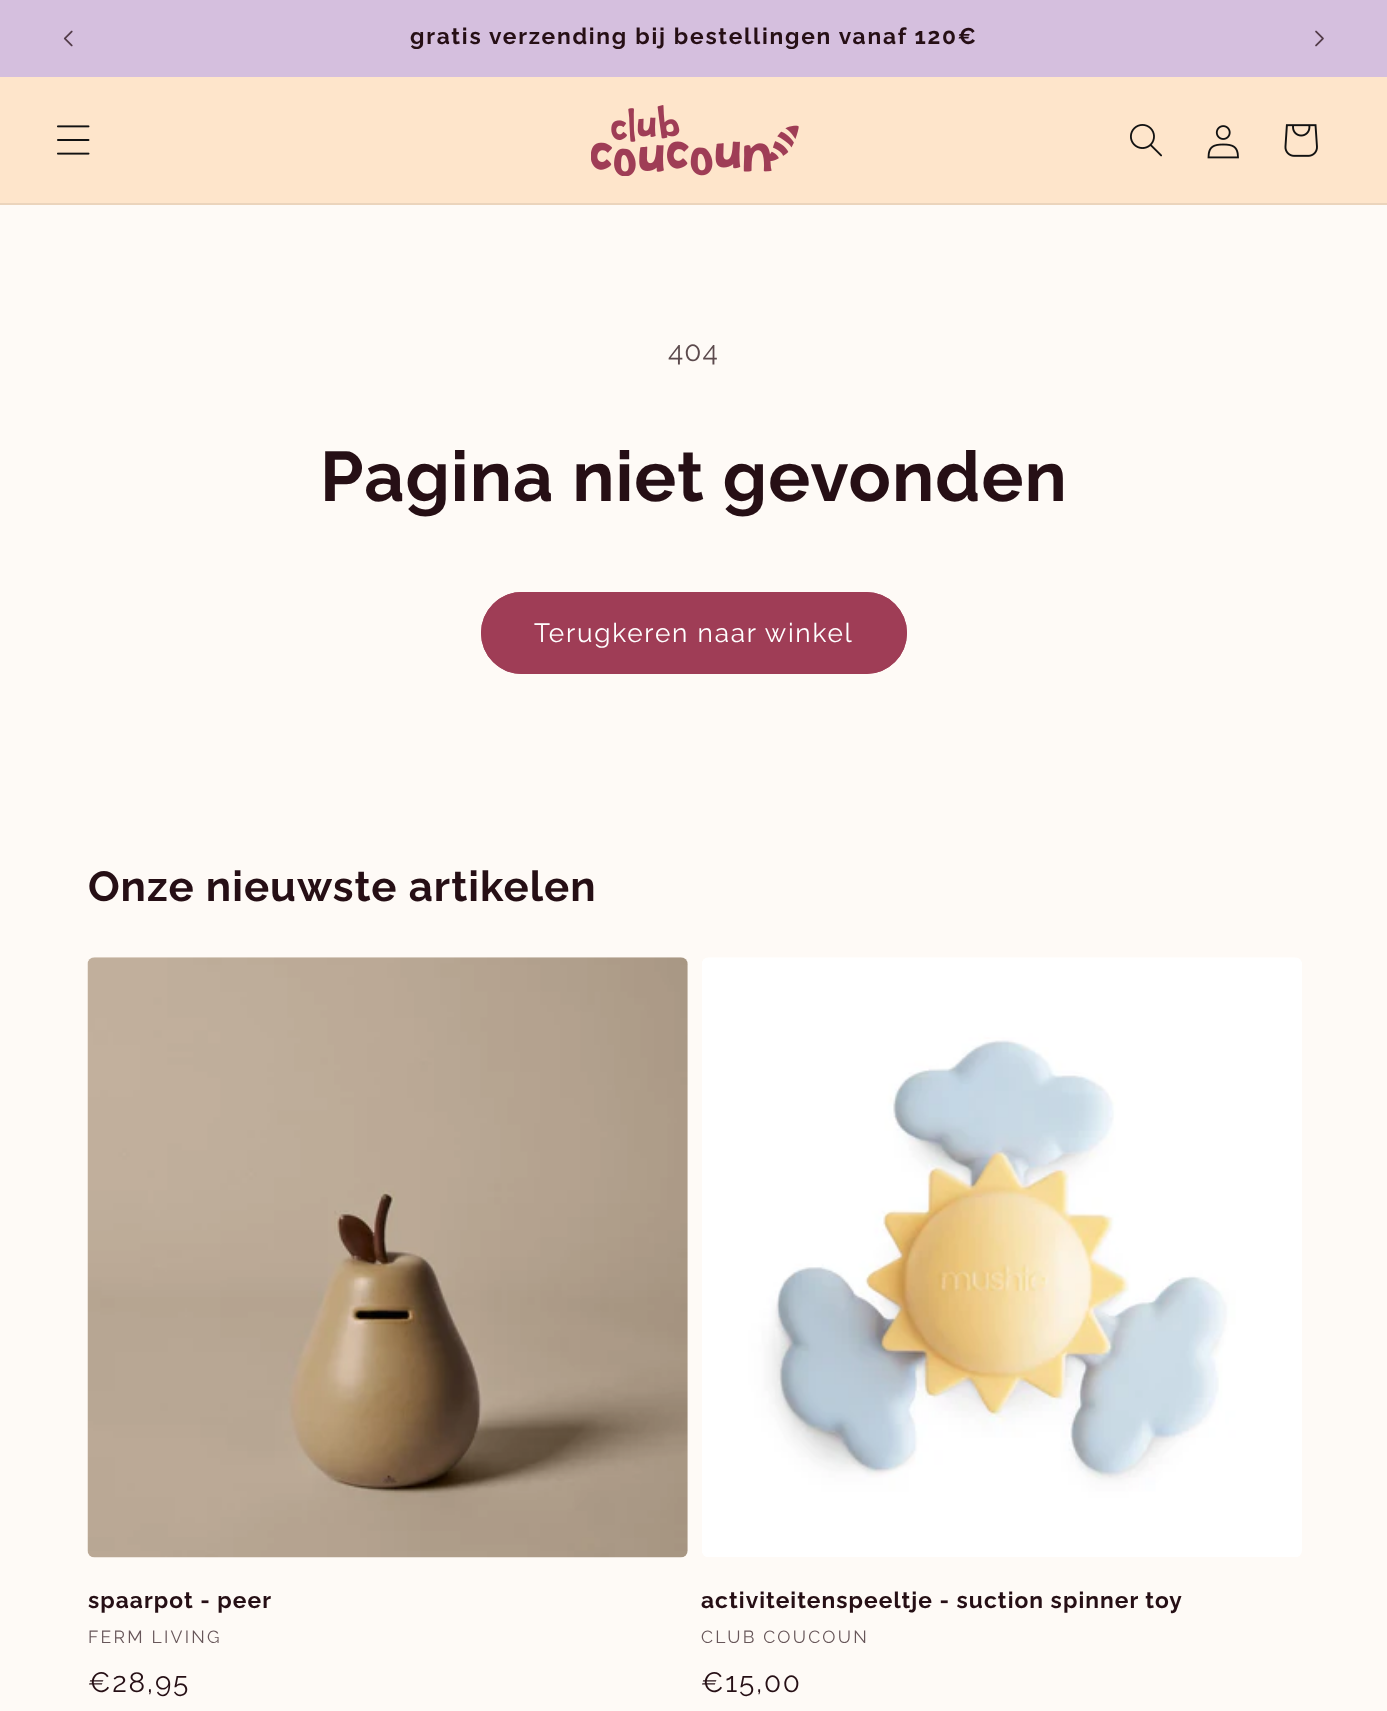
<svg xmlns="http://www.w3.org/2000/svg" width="1387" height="1711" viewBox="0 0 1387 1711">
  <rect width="100%" height="100%" fill="rgb(254,250,246)"/>
  <rect x="0" y="0" width="1387" height="77" fill="rgb(213,191,222)"/>
  <image x="63" y="30" width="10" height="17" href="pic1.png"/>
  <text x="410" y="44" font-family="Raleway" font-size="22.75" font-weight="bold" letter-spacing="1.75" fill="rgb(38,15,21)">gratis verzending bij bestellingen vanaf 120€</text>
  <image x="1315" y="30" width="9" height="17" href="pic2.png"/>
  <rect x="0" y="77" width="1387" height="126" fill="rgb(254,229,203)"/>
  <rect x="0" y="203" width="1387" height="2" fill="rgb(235,212,188)"/>
  <image x="57" y="125" width="33" height="30" href="pic3.png"/>
  <image x="591" y="105" width="208" height="71" href="pic4.png"/>
  <image x="1130" y="124" width="32" height="33" href="pic5.png"/>
  <image x="1207" y="125" width="32" height="34" href="pic6.png"/>
  <image x="1284" y="124" width="34" height="33" href="pic7.png"/>
  <text x="668" y="361" font-family="Raleway" font-size="28" letter-spacing="1.05" fill="rgb(92,74,77)">404</text>
  <text x="320" y="501" font-family="Raleway" font-size="70" font-weight="bold" letter-spacing="1.05" fill="rgb(38,15,21)">Pagina niet gevonden</text>
  <rect x="481" y="592" width="426" height="82" rx="41" fill="rgb(159,61,86)"/>
  <rect x="482" y="593" width="424" height="80" rx="40" fill="none" stroke="rgb(159,61,86)" stroke-width="2"/>
  <text x="534" y="642" font-family="Raleway" font-size="26.25" letter-spacing="1.75" fill="rgb(255,255,255)">Terugkeren naar winkel</text>
  <text x="88" y="901" font-family="Raleway" font-size="42" font-weight="bold" letter-spacing="1.05" fill="rgb(38,15,21)">Onze nieuwste artikelen</text>
  <image x="87" y="957" width="601" height="601" href="pic8.png"/>
  <text x="88" y="1608" font-family="Raleway" font-size="22.75" font-weight="bold" letter-spacing="1.05" fill="rgb(38,15,21)">spaarpot - peer</text>
  <text x="88" y="1643" font-family="Raleway" font-size="17.5" letter-spacing="2.25" fill="rgb(103,86,89)">FERM LIVING</text>
  <text x="88" y="1692" font-family="Raleway" font-size="28" letter-spacing="1.75" fill="rgb(38,15,21)">€28,95</text>
  <image x="702" y="957" width="600" height="600" href="pic9.png"/>
  <text x="701" y="1608" font-family="Raleway" font-size="22.75" font-weight="bold" letter-spacing="1.05" fill="rgb(38,15,21)">activiteitenspeeltje - suction spinner toy</text>
  <text x="701" y="1643" font-family="Raleway" font-size="17.5" letter-spacing="2.25" fill="rgb(103,86,89)">CLUB COUCOUN</text>
  <text x="701" y="1692" font-family="Raleway" font-size="28" letter-spacing="1.75" fill="rgb(38,15,21)">€15,00</text>
</svg>
